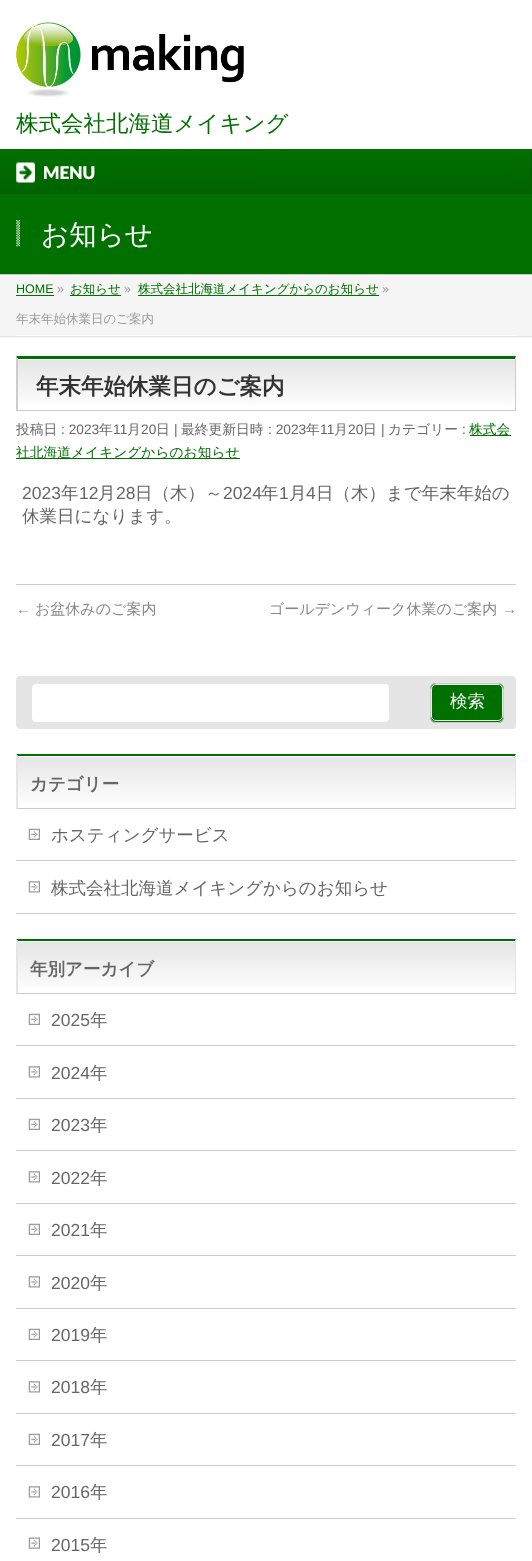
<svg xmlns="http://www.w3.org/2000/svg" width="532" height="1561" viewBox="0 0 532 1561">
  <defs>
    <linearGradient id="g1" gradientUnits="userSpaceOnUse" x1="266" y1="151" x2="266" y2="194"><stop offset="0" stop-color="rgb(0,112,0)"/><stop offset="1" stop-color="rgb(0,99,0)"/></linearGradient>
    <linearGradient id="g2" gradientUnits="userSpaceOnUse" x1="18" y1="359" x2="18" y2="410"><stop offset="0" stop-color="rgb(229,229,229)"/><stop offset="1" stop-color="rgb(255,255,255)"/></linearGradient>
    <linearGradient id="g3" gradientUnits="userSpaceOnUse" x1="18" y1="756" x2="18" y2="808"><stop offset="0" stop-color="rgb(229,229,229)"/><stop offset="1" stop-color="rgb(255,255,255)"/></linearGradient>
    <linearGradient id="g4" gradientUnits="userSpaceOnUse" x1="18" y1="941" x2="18" y2="993"><stop offset="0" stop-color="rgb(229,229,229)"/><stop offset="1" stop-color="rgb(255,255,255)"/></linearGradient>
  </defs>
  <rect width="100%" height="100%" fill="rgb(255,255,255)"/>
  <image x="16" y="22" width="228" height="75" href="pic1.png"/>
  <text x="16" y="131" font-family="WenQuanYi Zen Hei" font-size="22.5" font-weight="500" fill="rgb(0,112,0)">株式会社北海道メイキング</text>
  <rect x="0" y="149" width="532" height="2" fill="rgb(0,112,0)"/>
  <rect x="0" y="151" width="531" height="43" fill="url(#g1)"/>
  <rect x="531" y="151" width="1" height="43" fill="rgb(0,99,0)"/>
  <image x="16" y="162" width="19" height="21" href="pic2.png"/>
  <text x="43" y="179" font-family="Lato" font-size="17.5" font-weight="900" fill="rgb(255,255,255)">MENU</text>
  <rect x="0" y="194" width="532" height="80" fill="rgb(0,112,0)"/>
  <rect x="0" y="274" width="532" height="1" fill="rgb(204,204,204)"/>
  <image x="16" y="220" width="4" height="27" href="pic3.png"/>
  <text x="41" y="244" font-family="WenQuanYi Zen Hei" font-size="27.5" font-weight="500" fill="rgb(255,255,255)">お知らせ</text>
  <rect x="0" y="275" width="532" height="63" fill="rgb(245,245,245)"/>
  <rect x="0" y="336" width="532" height="1" fill="rgb(229,229,229)"/>
  <rect x="16" y="335" width="500" height="1" fill="rgb(255,255,255)"/>
  <text x="16" y="293" font-family="Liberation Sans" font-size="12.5" fill="rgb(0,112,0)">HOME</text>
  <rect x="16" y="295" width="38" height="1" fill="rgb(0,112,0)"/>
  <text x="57" y="293" font-family="Liberation Sans" font-size="12.5" fill="rgb(153,153,153)">»</text>
  <text x="70" y="293" font-family="WenQuanYi Zen Hei" font-size="12.5" font-weight="500" fill="rgb(0,112,0)">お知らせ</text>
  <rect x="70" y="295" width="51" height="1" fill="rgb(0,112,0)"/>
  <text x="124" y="293" font-family="Liberation Sans" font-size="12.5" fill="rgb(153,153,153)">»</text>
  <text x="138" y="293" font-family="WenQuanYi Zen Hei" font-size="12.5" font-weight="500" fill="rgb(0,112,0)">株式会社北海道メイキングからのお知らせ</text>
  <rect x="138" y="295" width="241" height="1" fill="rgb(0,112,0)"/>
  <text x="382" y="293" font-family="Liberation Sans" font-size="12.5" fill="rgb(153,153,153)">»</text>
  <text x="16" y="323" font-family="WenQuanYi Zen Hei" font-size="12.5" font-weight="500" fill="rgb(153,153,153)">年末年始休業日のご案内</text>
  <rect x="18" y="360" width="497" height="45" fill="url(#g2)"/>
  <path d="M16 356H516L515 359H18Z" fill="rgb(0,112,0)"/>
  <path d="M516 356V411L515 410V359Z" fill="rgb(204,204,204)"/>
  <rect x="16" y="410" width="500" height="1" fill="rgb(204,204,204)"/>
  <path d="M16 411V356L18 359V410Z" fill="rgb(204,204,204)"/>
  <text x="36" y="394" font-family="WenQuanYi Zen Hei" font-size="22.5" font-weight="bold" fill="rgb(51,51,51)">年末年始休業日のご案内</text>
  <text x="16" y="434" font-family="WenQuanYi Zen Hei" font-size="13.75" font-weight="500" fill="rgb(102,102,102)">投稿日</text>
  <text x="61" y="434" font-family="Liberation Sans" font-size="13.75" fill="rgb(102,102,102)">: 2023</text>
  <text x="99" y="434" font-family="WenQuanYi Zen Hei" font-size="13.75" font-weight="500" fill="rgb(102,102,102)">年</text>
  <text x="113" y="434" font-family="Liberation Sans" font-size="13.75" fill="rgb(102,102,102)">11</text>
  <text x="127" y="434" font-family="WenQuanYi Zen Hei" font-size="13.75" font-weight="500" fill="rgb(102,102,102)">月</text>
  <text x="141" y="434" font-family="Liberation Sans" font-size="13.75" fill="rgb(102,102,102)">20</text>
  <text x="156" y="434" font-family="WenQuanYi Zen Hei" font-size="13.75" font-weight="500" fill="rgb(102,102,102)">日</text>
  <text x="174" y="434" font-family="Liberation Sans" font-size="13.75" fill="rgb(102,102,102)">|</text>
  <text x="181" y="434" font-family="WenQuanYi Zen Hei" font-size="13.75" font-weight="500" fill="rgb(102,102,102)">最終更新日時</text>
  <text x="268" y="434" font-family="Liberation Sans" font-size="13.75" fill="rgb(102,102,102)">: 2023</text>
  <text x="306" y="434" font-family="WenQuanYi Zen Hei" font-size="13.75" font-weight="500" fill="rgb(102,102,102)">年</text>
  <text x="320" y="434" font-family="Liberation Sans" font-size="13.75" fill="rgb(102,102,102)">11</text>
  <text x="334" y="434" font-family="WenQuanYi Zen Hei" font-size="13.75" font-weight="500" fill="rgb(102,102,102)">月</text>
  <text x="348" y="434" font-family="Liberation Sans" font-size="13.75" fill="rgb(102,102,102)">20</text>
  <text x="363" y="434" font-family="WenQuanYi Zen Hei" font-size="13.75" font-weight="500" fill="rgb(102,102,102)">日</text>
  <text x="381" y="434" font-family="Liberation Sans" font-size="13.75" fill="rgb(102,102,102)">|</text>
  <text x="388" y="434" font-family="WenQuanYi Zen Hei" font-size="13.75" font-weight="500" fill="rgb(102,102,102)">カテゴリー</text>
  <text x="462" y="434" font-family="Liberation Sans" font-size="13.75" fill="rgb(102,102,102)">:</text>
  <rect x="470" y="435" width="41" height="1" fill="rgb(0,112,0)"/>
  <text x="469" y="434" font-family="WenQuanYi Zen Hei" font-size="13.75" font-weight="500" fill="rgb(0,112,0)">株式会</text>
  <rect x="16" y="458" width="224" height="1" fill="rgb(0,112,0)"/>
  <text x="16" y="457" font-family="WenQuanYi Zen Hei" font-size="13.75" font-weight="500" fill="rgb(0,112,0)">社北海道メイキングからのお知らせ</text>
  <text x="22" y="499" font-family="Liberation Sans" font-size="17.5" fill="rgb(102,102,102)">2023</text>
  <text x="61" y="499" font-family="WenQuanYi Zen Hei" font-size="17.5" font-weight="500" fill="rgb(102,102,102)">年</text>
  <text x="79" y="499" font-family="Liberation Sans" font-size="17.5" fill="rgb(102,102,102)">12</text>
  <text x="98" y="499" font-family="WenQuanYi Zen Hei" font-size="17.5" font-weight="500" fill="rgb(102,102,102)">月</text>
  <text x="116" y="499" font-family="Liberation Sans" font-size="17.5" fill="rgb(102,102,102)">28</text>
  <text x="135" y="499" font-family="WenQuanYi Zen Hei" font-size="17.5" font-weight="500" fill="rgb(102,102,102)">日（木）～</text>
  <text x="223" y="499" font-family="Liberation Sans" font-size="17.5" fill="rgb(102,102,102)">2024</text>
  <text x="261" y="499" font-family="WenQuanYi Zen Hei" font-size="17.5" font-weight="500" fill="rgb(102,102,102)">年</text>
  <text x="279" y="499" font-family="Liberation Sans" font-size="17.5" fill="rgb(102,102,102)">1</text>
  <text x="289" y="499" font-family="WenQuanYi Zen Hei" font-size="17.5" font-weight="500" fill="rgb(102,102,102)">月</text>
  <text x="306" y="499" font-family="Liberation Sans" font-size="17.5" fill="rgb(102,102,102)">4</text>
  <g font-family="WenQuanYi Zen Hei" font-size="17.5" font-weight="500" fill="rgb(102,102,102)">
    <text x="316" y="499">日（木）まで年末年始の</text>
    <text x="22" y="522">休業日になります。</text>
  </g>
  <rect x="16" y="584" width="500" height="1" fill="rgb(204,204,204)"/>
  <text x="16" y="614" font-family="Liberation Sans" font-size="15" fill="rgb(136,136,136)">←</text>
  <g font-family="WenQuanYi Zen Hei" font-size="15" font-weight="500" fill="rgb(136,136,136)">
    <text x="35" y="614">お盆休みのご案内</text>
    <text x="269" y="614">ゴールデンウィーク休業のご案内</text>
  </g>
  <text x="502" y="614" font-family="Liberation Sans" font-size="15" fill="rgb(136,136,136)">→</text>
  <rect x="16" y="676" width="500" height="53" rx="4" fill="rgb(229,229,229)"/>
  <rect x="31.5" y="683.5" width="358" height="39" rx="4.5" fill="rgb(255,255,255)" stroke="rgb(229,229,229)"/>
  <rect x="430" y="683" width="74" height="40" rx="6" fill="rgb(0,112,0)"/>
  <rect x="431.5" y="684.5" width="71" height="36" rx="4.5" fill="none" stroke="rgb(230,241,230)"/>
  <rect x="430.5" y="683.5" width="73" height="39" rx="5.5" fill="none" stroke="rgb(204,204,204)"/>
  <text x="450" y="707" font-family="WenQuanYi Zen Hei" font-size="17.5" font-weight="500" fill="rgb(245,245,245)">検索</text>
  <rect x="18" y="757" width="497" height="46" fill="url(#g3)"/>
  <path d="M16 754H516L515 756H18Z" fill="rgb(0,112,0)"/>
  <path d="M516 754V809L515 808V756Z" fill="rgb(229,229,229)"/>
  <rect x="16" y="808" width="500" height="1" fill="rgb(204,204,204)"/>
  <path d="M16 809V754L18 756V808Z" fill="rgb(229,229,229)"/>
  <text x="30" y="790" font-family="WenQuanYi Zen Hei" font-size="17.5" font-weight="bold" fill="rgb(102,102,102)">カテゴリー</text>
  <rect x="16" y="860" width="500" height="1" fill="rgb(204,204,204)"/>
  <image x="28" y="828" width="12" height="12" href="pic4.png"/>
  <text x="51" y="841" font-family="WenQuanYi Zen Hei" font-size="17.5" font-weight="500" fill="rgb(102,102,102)">ホスティングサービス</text>
  <rect x="16" y="913" width="500" height="1" fill="rgb(204,204,204)"/>
  <image x="28" y="881" width="12" height="12" href="pic5.png"/>
  <text x="51" y="894" font-family="WenQuanYi Zen Hei" font-size="17.5" font-weight="500" fill="rgb(102,102,102)">株式会社北海道メイキングからのお知らせ</text>
  <rect x="18" y="942" width="497" height="46" fill="url(#g4)"/>
  <path d="M16 939H516L515 941H18Z" fill="rgb(0,112,0)"/>
  <path d="M516 939V994L515 992V941Z" fill="rgb(229,229,229)"/>
  <rect x="16" y="993" width="500" height="1" fill="rgb(204,204,204)"/>
  <path d="M16 994V939L18 941V992Z" fill="rgb(229,229,229)"/>
  <text x="30" y="975" font-family="WenQuanYi Zen Hei" font-size="17.5" font-weight="bold" fill="rgb(102,102,102)">年別アーカイブ</text>
  <rect x="16" y="1045" width="500" height="1" fill="rgb(204,204,204)"/>
  <image x="28" y="1013" width="12" height="12" href="pic4.png"/>
  <text x="51" y="1026" font-family="Liberation Sans" font-size="17.5" fill="rgb(102,102,102)">2025</text>
  <text x="90" y="1026" font-family="WenQuanYi Zen Hei" font-size="17.5" font-weight="500" fill="rgb(102,102,102)">年</text>
  <rect x="16" y="1098" width="500" height="1" fill="rgb(204,204,204)"/>
  <image x="28" y="1066" width="12" height="12" href="pic5.png"/>
  <text x="51" y="1079" font-family="Liberation Sans" font-size="17.5" fill="rgb(102,102,102)">2024</text>
  <text x="90" y="1079" font-family="WenQuanYi Zen Hei" font-size="17.5" font-weight="500" fill="rgb(102,102,102)">年</text>
  <rect x="16" y="1150" width="500" height="1" fill="rgb(204,204,204)"/>
  <image x="28" y="1118" width="12" height="12" href="pic4.png"/>
  <text x="51" y="1131" font-family="Liberation Sans" font-size="17.5" fill="rgb(102,102,102)">2023</text>
  <text x="90" y="1131" font-family="WenQuanYi Zen Hei" font-size="17.5" font-weight="500" fill="rgb(102,102,102)">年</text>
  <rect x="16" y="1203" width="500" height="1" fill="rgb(204,204,204)"/>
  <image x="28" y="1171" width="12" height="12" href="pic6.png"/>
  <text x="51" y="1184" font-family="Liberation Sans" font-size="17.5" fill="rgb(102,102,102)">2022</text>
  <text x="90" y="1184" font-family="WenQuanYi Zen Hei" font-size="17.5" font-weight="500" fill="rgb(102,102,102)">年</text>
  <rect x="16" y="1255" width="500" height="1" fill="rgb(204,204,204)"/>
  <image x="28" y="1223" width="12" height="12" href="pic4.png"/>
  <text x="51" y="1236" font-family="Liberation Sans" font-size="17.5" fill="rgb(102,102,102)">2021</text>
  <text x="90" y="1236" font-family="WenQuanYi Zen Hei" font-size="17.5" font-weight="500" fill="rgb(102,102,102)">年</text>
  <rect x="16" y="1308" width="500" height="1" fill="rgb(204,204,204)"/>
  <image x="28" y="1276" width="12" height="12" href="pic5.png"/>
  <text x="51" y="1289" font-family="Liberation Sans" font-size="17.5" fill="rgb(102,102,102)">2020</text>
  <text x="90" y="1289" font-family="WenQuanYi Zen Hei" font-size="17.5" font-weight="500" fill="rgb(102,102,102)">年</text>
  <rect x="16" y="1360" width="500" height="1" fill="rgb(204,204,204)"/>
  <image x="28" y="1328" width="12" height="12" href="pic4.png"/>
  <text x="51" y="1341" font-family="Liberation Sans" font-size="17.5" fill="rgb(102,102,102)">2019</text>
  <text x="90" y="1341" font-family="WenQuanYi Zen Hei" font-size="17.5" font-weight="500" fill="rgb(102,102,102)">年</text>
  <rect x="16" y="1413" width="500" height="1" fill="rgb(204,204,204)"/>
  <image x="28" y="1381" width="12" height="12" href="pic5.png"/>
  <text x="51" y="1393" font-family="Liberation Sans" font-size="17.5" fill="rgb(102,102,102)">2018</text>
  <text x="90" y="1393" font-family="WenQuanYi Zen Hei" font-size="17.5" font-weight="500" fill="rgb(102,102,102)">年</text>
  <rect x="16" y="1465" width="500" height="1" fill="rgb(204,204,204)"/>
  <image x="28" y="1433" width="12" height="12" href="pic4.png"/>
  <text x="51" y="1446" font-family="Liberation Sans" font-size="17.5" fill="rgb(102,102,102)">2017</text>
  <text x="90" y="1446" font-family="WenQuanYi Zen Hei" font-size="17.5" font-weight="500" fill="rgb(102,102,102)">年</text>
  <rect x="16" y="1518" width="500" height="1" fill="rgb(204,204,204)"/>
  <image x="28" y="1486" width="12" height="12" href="pic5.png"/>
  <text x="51" y="1498" font-family="Liberation Sans" font-size="17.5" fill="rgb(102,102,102)">2016</text>
  <text x="90" y="1498" font-family="WenQuanYi Zen Hei" font-size="17.5" font-weight="500" fill="rgb(102,102,102)">年</text>
  <image x="28" y="1537" width="12" height="12" href="pic7.png"/>
  <text x="51" y="1551" font-family="Liberation Sans" font-size="17.5" fill="rgb(102,102,102)">2015</text>
  <text x="90" y="1551" font-family="WenQuanYi Zen Hei" font-size="17.5" font-weight="500" fill="rgb(102,102,102)">年</text>
</svg>
